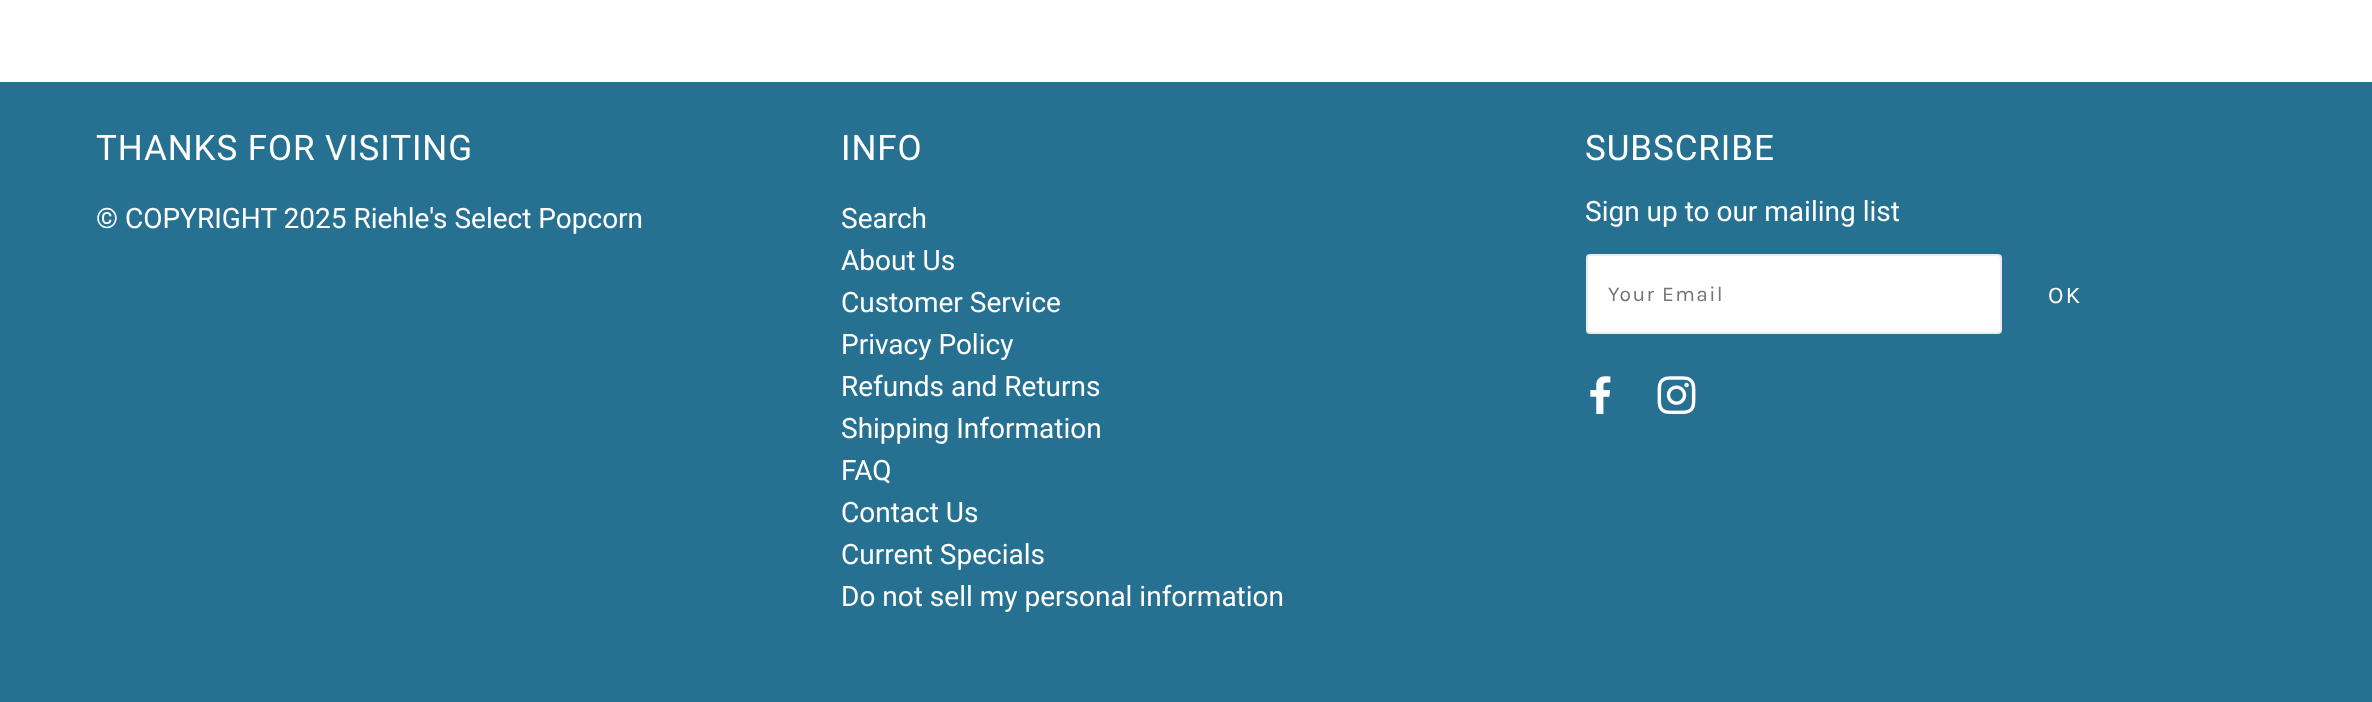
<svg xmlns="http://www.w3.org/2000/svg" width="2372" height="702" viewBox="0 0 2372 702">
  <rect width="100%" height="100%" fill="rgb(255,255,255)"/>
  <rect x="0" y="82" width="2372" height="620" fill="rgb(38,113,145)"/>
  <text x="96" y="160" font-family="Roboto" font-size="35" letter-spacing="0.9" fill="rgb(255,255,255)">THANKS FOR VISITING</text>
  <text x="96" y="228" font-family="Roboto" font-size="28" fill="rgb(255,255,255)">© COPYRIGHT 2025 Riehle's Select Popcorn</text>
  <text x="841" y="160" font-family="Roboto" font-size="35" letter-spacing="0.9" fill="rgb(255,255,255)">INFO</text>
  <g font-family="Roboto" font-size="28" fill="rgb(255,255,255)">
    <text>
      <tspan x="841" y="228">Search</tspan>
      <tspan x="841" y="270">About Us</tspan>
      <tspan x="841" y="312">Customer Service</tspan>
      <tspan x="841" y="354">Privacy Policy</tspan>
      <tspan x="841" y="396">Refunds and Returns</tspan>
      <tspan x="841" y="438">Shipping Information</tspan>
      <tspan x="841" y="480">FAQ</tspan>
      <tspan x="841" y="522">Contact Us</tspan>
      <tspan x="841" y="564">Current Specials</tspan>
      <tspan x="841" y="606">Do not sell my personal information</tspan>
    </text>
  </g>
  <text x="1585" y="160" font-family="Roboto" font-size="35" letter-spacing="0.9" fill="rgb(255,255,255)">SUBSCRIBE</text>
  <text x="1585" y="221" font-family="Roboto" font-size="28" fill="rgb(255,255,255)">Sign up to our mailing list</text>
  <rect x="1587" y="255" width="414" height="78" rx="3" fill="rgb(255,255,255)" stroke="rgb(235,235,235)" stroke-width="2"/>
  <text x="1608" y="301" font-family="Karla" font-size="21" letter-spacing="1.4" fill="rgb(117,117,117)">Your Email</text>
  <text x="2048" y="303" font-family="Karla" font-size="24" letter-spacing="2" fill="rgb(255,255,255)">OK</text>
  <image x="1590" y="376" width="21" height="38" href="pic1.png"/>
  <image x="1657" y="376" width="39" height="38" href="pic2.png"/>
</svg>
